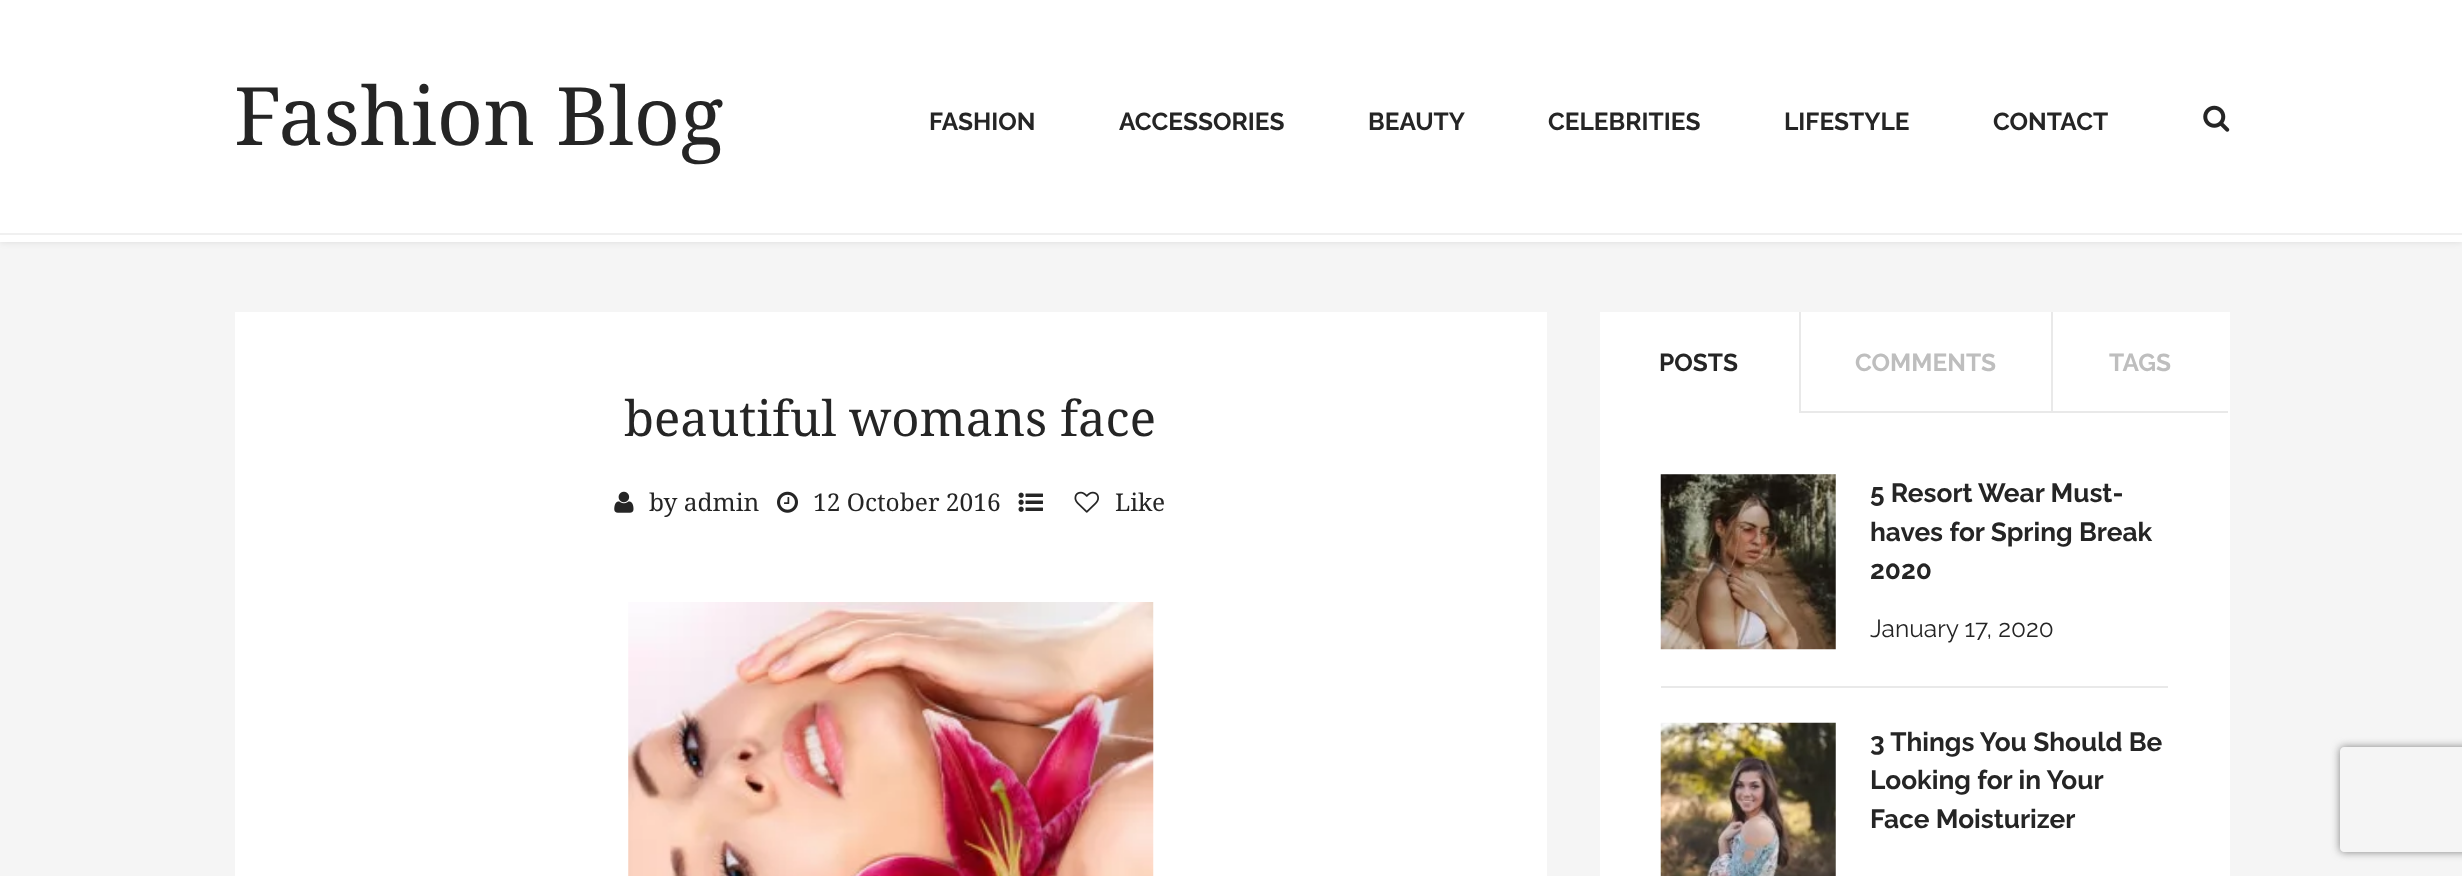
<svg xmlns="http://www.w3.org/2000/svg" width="2462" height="876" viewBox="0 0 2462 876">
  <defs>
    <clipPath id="clip1"><path d="M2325 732H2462V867H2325ZM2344 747H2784C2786 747 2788 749 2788 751V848C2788 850 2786 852 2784 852H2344C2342 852 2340 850 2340 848V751C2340 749 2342 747 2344 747Z" clip-rule="evenodd"/></clipPath>
  </defs>
  <rect width="100%" height="100%" fill="rgb(245,245,245)"/>
  <rect x="0" y="0" width="2462" height="242" fill="rgba(0,0,0,0.1)" filter="blur(3.5px)"/>
  <rect x="0" y="0" width="2462" height="242" fill="rgb(255,255,255)"/>
  <text x="234" y="145" font-family="Noto Serif" font-size="80.5" fill="rgb(37,37,37)">Fashion Blog</text>
  <g font-family="Raleway" font-size="24.5" font-weight="bold" fill="rgb(37,37,37)">
    <text x="929" y="130">FASHION</text>
    <text x="1119" y="130">ACCESSORIES</text>
    <text x="1368" y="130">BEAUTY</text>
    <text x="1548" y="130">CELEBRITIES</text>
    <text x="1784" y="130">LIFESTYLE</text>
    <text x="1993" y="130">CONTACT</text>
  </g>
  <image x="2203" y="105" width="27" height="27" href="pic1.png"/>
  <rect x="0" y="233" width="2462" height="2" fill="rgb(240,240,240)"/>
  <rect x="235" y="312" width="1312" height="564" fill="rgb(255,255,255)"/>
  <text x="624" y="436" font-family="Noto Serif" font-size="49" fill="rgb(37,37,37)">beautiful womans face</text>
  <image x="614" y="491" width="20" height="22" href="pic2.png"/>
  <text x="649" y="511" font-family="Noto Serif" font-size="24.5" fill="rgb(37,37,37)">by admin</text>
  <image x="777" y="491" width="21" height="22" href="pic3.png"/>
  <text x="813" y="511" font-family="Noto Serif" font-size="24.5" fill="rgb(37,37,37)">12 October 2016</text>
  <image x="1018" y="492" width="25" height="20" href="pic4.png"/>
  <image x="1074" y="491" width="25" height="22" href="pic5.png"/>
  <text x="1115" y="511" font-family="Noto Serif" font-size="24.5" fill="rgb(37,37,37)">Like</text>
  <image x="628" y="602" width="526" height="274" href="pic6.png"/>
  <rect x="1600" y="312" width="630" height="564" fill="rgb(255,255,255)"/>
  <rect x="1799" y="312" width="2" height="101" fill="rgb(233,233,233)"/>
  <text x="1659" y="371" font-family="Raleway" font-size="24.5" font-weight="bold" fill="rgb(37,37,37)">POSTS</text>
  <rect x="2051" y="312" width="2" height="101" fill="rgb(233,233,233)"/>
  <rect x="1801" y="411" width="427" height="2" fill="rgb(233,233,233)"/>
  <g font-family="Raleway" font-size="24.5" font-weight="bold" fill="rgb(190,190,190)">
    <text x="1855" y="371">COMMENTS</text>
    <text x="2109" y="371">TAGS</text>
  </g>
  <rect x="1661" y="686" width="507" height="2" fill="rgb(233,233,233)"/>
  <image x="1660" y="474" width="176" height="176" href="pic7.png"/>
  <g font-family="Raleway" font-size="26.25" font-weight="bold" fill="rgb(37,37,37)">
    <text>
      <tspan x="1870" y="502">5 Resort Wear Must-</tspan>
      <tspan x="1870" y="541">haves for Spring Break</tspan>
      <tspan x="1870" y="579">2020</tspan>
    </text>
  </g>
  <text x="1870" y="637" font-family="Raleway" font-size="24.5" fill="rgb(37,37,37)">January 17, 2020</text>
  <image x="1660" y="722" width="176" height="154" href="pic8.png"/>
  <g font-family="Raleway" font-size="26.25" font-weight="bold" fill="rgb(37,37,37)">
    <text>
      <tspan x="1870" y="751">3 Things You Should Be</tspan>
      <tspan x="1870" y="789">Looking for in Your</tspan>
      <tspan x="1870" y="828">Face Moisturizer</tspan>
    </text>
  </g>
  <g clip-path="url(#clip1)">
    <rect x="2340" y="747" width="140" height="105" rx="4" fill="rgb(128,128,128)" filter="blur(4.5px)"/>
  </g>
</svg>
